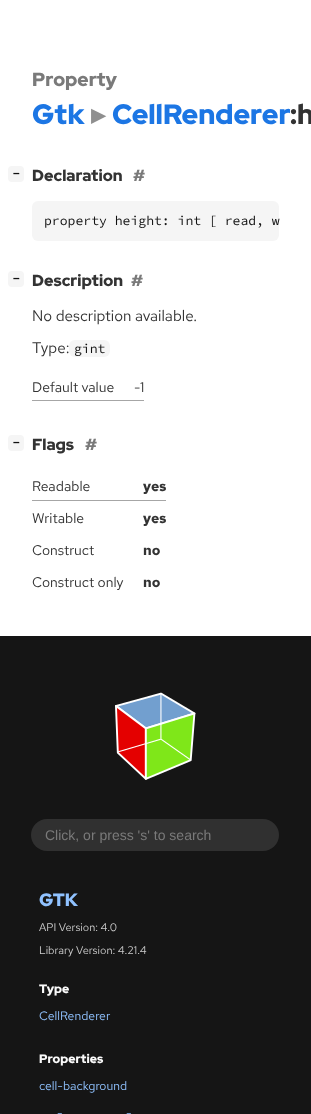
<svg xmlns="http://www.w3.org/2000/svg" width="311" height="1114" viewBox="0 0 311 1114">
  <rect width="100%" height="100%" fill="rgb(255,255,255)"/>
  <text x="32" y="86" font-family="Red Hat Display" font-size="19" font-weight="900" fill="rgb(122,122,122)">Property</text>
  <text x="32" y="124" font-family="Red Hat Display" font-size="28" font-weight="900" fill="rgb(28,118,228)">Gtk</text>
  <text x="91" y="124" font-family="DejaVu Sans" font-size="28" font-weight="bold" fill="rgb(143,143,143)">▸</text>
  <text x="112" y="124" font-family="Red Hat Display" font-size="28" font-weight="900" fill="rgb(28,118,228)">CellRenderer</text>
  <text x="290" y="124" font-family="Red Hat Display" font-size="28" font-weight="900" fill="rgb(51,51,51)">:h</text>
  <rect x="8" y="166" width="16" height="16" rx="4" fill="rgb(245,245,245)"/>
  <text x="13" y="177" font-family="DejaVu Sans Mono" font-size="11" font-weight="bold" fill="rgb(17,17,17)">−</text>
  <text x="32" y="181" font-family="Red Hat Display" font-size="16" font-weight="900" fill="rgb(51,51,51)">Declaration</text>
  <text x="133" y="181" font-family="Red Hat Display" font-size="16" font-weight="900" fill="rgb(122,122,122)">#</text>
  <rect x="32" y="201" width="247" height="40" rx="6" fill="rgb(245,245,245)"/>
  <text x="44" y="225" font-family="Source Code Pro" font-size="13.1" fill="rgb(17,17,17)">property height: int [ read, w</text>
  <rect x="8" y="271" width="16" height="16" rx="4" fill="rgb(245,245,245)"/>
  <text x="13" y="282" font-family="DejaVu Sans Mono" font-size="11" font-weight="bold" fill="rgb(17,17,17)">−</text>
  <text x="32" y="286" font-family="Red Hat Display" font-size="16" font-weight="900" fill="rgb(51,51,51)">Description</text>
  <text x="131" y="286" font-family="Red Hat Display" font-size="16" font-weight="900" fill="rgb(122,122,122)">#</text>
  <g font-family="Red Hat Text" font-size="15.25" fill="rgb(51,51,51)">
    <text x="32" y="321">No description available.</text>
    <text x="32" y="353">Type:</text>
  </g>
  <rect x="69" y="340" width="41" height="17" rx="6" fill="rgb(245,245,245)"/>
  <text x="74" y="353" font-family="Source Code Pro" font-size="13.1" fill="rgb(17,17,17)">gint</text>
  <rect x="32" y="400" width="112" height="1" fill="rgb(166,166,166)"/>
  <g font-family="Red Hat Text" font-size="14" fill="rgb(51,51,51)">
    <text x="32" y="392">Default value</text>
    <text x="134" y="392">-1</text>
  </g>
  <rect x="8" y="435" width="16" height="16" rx="4" fill="rgb(245,245,245)"/>
  <text x="13" y="446" font-family="DejaVu Sans Mono" font-size="11" font-weight="bold" fill="rgb(17,17,17)">−</text>
  <text x="32" y="450" font-family="Red Hat Display" font-size="16" font-weight="900" fill="rgb(51,51,51)">Flags</text>
  <text x="85" y="450" font-family="Red Hat Display" font-size="16" font-weight="900" fill="rgb(122,122,122)">#</text>
  <rect x="32" y="500" width="134" height="1" fill="rgb(166,166,166)"/>
  <text x="32" y="491" font-family="Red Hat Text" font-size="14" fill="rgb(51,51,51)">Readable</text>
  <text x="143" y="491" font-family="Red Hat Text" font-size="14" font-weight="bold" fill="rgb(51,51,51)">yes</text>
  <text x="32" y="523" font-family="Red Hat Text" font-size="14" fill="rgb(51,51,51)">Writable</text>
  <text x="143" y="523" font-family="Red Hat Text" font-size="14" font-weight="bold" fill="rgb(51,51,51)">yes</text>
  <text x="32" y="555" font-family="Red Hat Text" font-size="14" fill="rgb(51,51,51)">Construct</text>
  <text x="143" y="555" font-family="Red Hat Text" font-size="14" font-weight="bold" fill="rgb(51,51,51)">no</text>
  <text x="32" y="587" font-family="Red Hat Text" font-size="14" fill="rgb(51,51,51)">Construct only</text>
  <text x="143" y="587" font-family="Red Hat Text" font-size="14" font-weight="bold" fill="rgb(51,51,51)">no</text>
  <rect x="0" y="636" width="311" height="478" fill="rgb(21,21,21)"/>
  <image x="115" y="692" width="81" height="88" href="pic1.png"/>
  <rect x="31" y="819" width="248" height="32" rx="16" fill="rgb(48,48,48)"/>
  <text x="45" y="840" font-family="Liberation Sans" font-size="14" fill="rgb(122,122,122)">Click, or press 's' to search</text>
  <text x="39" y="906" font-family="Red Hat Display" font-size="18" font-weight="900" fill="rgb(144,194,255)">GTK</text>
  <g font-family="Red Hat Text" font-size="11" fill="rgb(204,204,204)">
    <text x="39" y="931">API Version: 4.0</text>
    <text x="39" y="954">Library Version: 4.21.4</text>
  </g>
  <text x="39" y="993" font-family="Red Hat Display" font-size="12.25" font-weight="900" fill="rgb(250,250,250)">Type</text>
  <text x="39" y="1020" font-family="Red Hat Text" font-size="12.25" fill="rgb(144,194,255)">CellRenderer</text>
  <text x="39" y="1063" font-family="Red Hat Display" font-size="12.25" font-weight="900" fill="rgb(250,250,250)">Properties</text>
  <g font-family="Red Hat Text" font-size="12.25" fill="rgb(144,194,255)">
    <text x="39" y="1090">cell-background</text>
    <text x="57" y="1117">-</text>
    <text x="126" y="1117">-</text>
  </g>
</svg>
